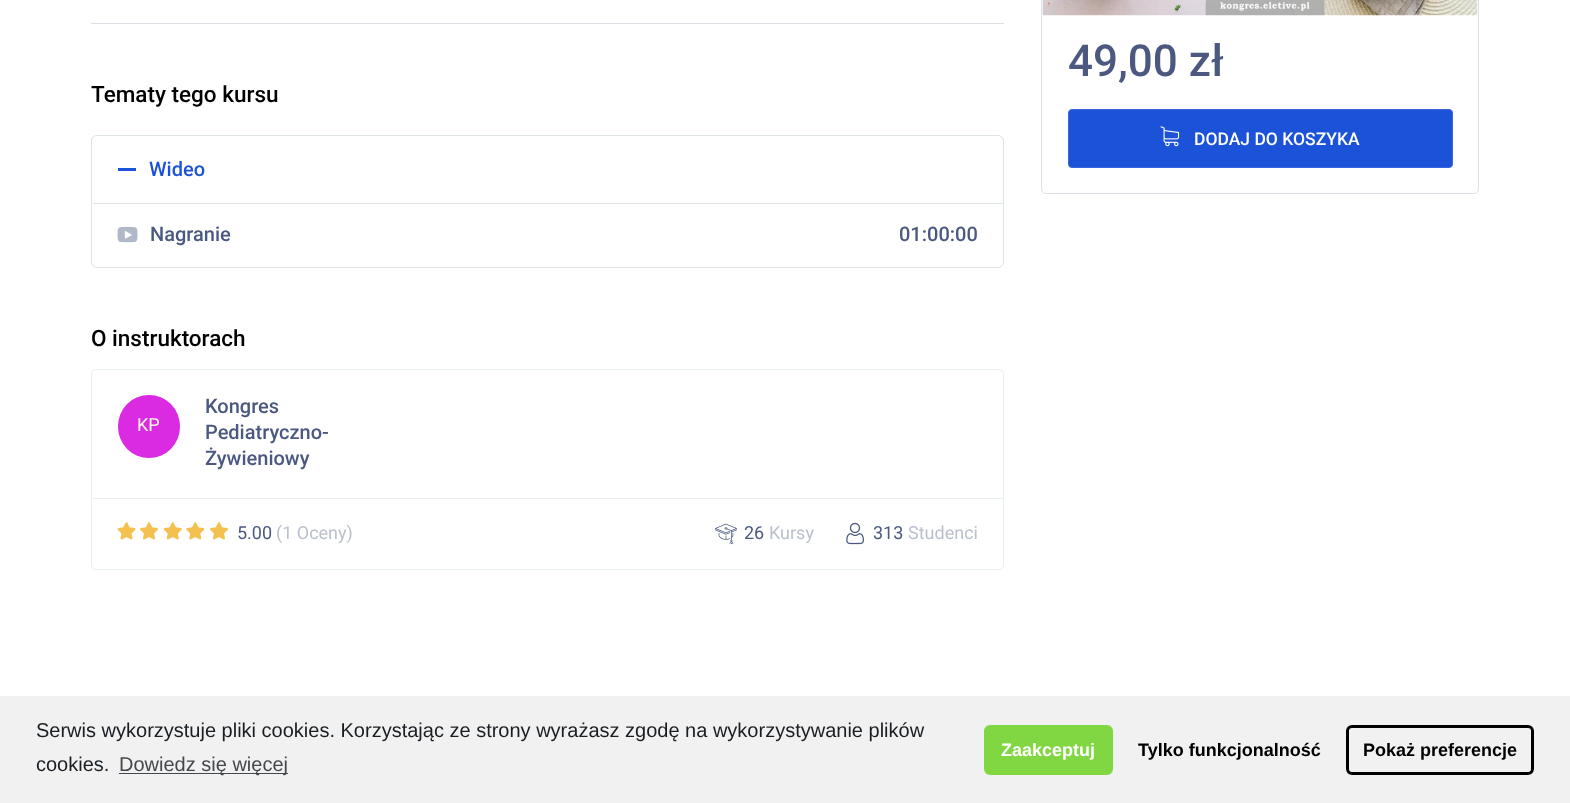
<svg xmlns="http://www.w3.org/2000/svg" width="1570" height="803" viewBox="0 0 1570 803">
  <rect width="100%" height="100%" fill="rgb(255,255,255)"/>
  <rect x="91" y="23" width="913" height="1" fill="rgb(220,223,229)"/>
  <text x="91" y="102" font-family="Roboto" font-size="22.5" font-weight="500" fill="rgb(0,0,0)">Tematy tego kursu</text>
  <rect x="91.5" y="135.5" width="912" height="132" rx="5.5" fill="none" stroke="rgb(220,228,230)"/>
  <rect x="118" y="168" width="18" height="3" fill="rgb(27,82,216)"/>
  <text x="149" y="176" font-family="Roboto" font-size="20" font-weight="500" fill="rgb(27,82,216)">Wideo</text>
  <rect x="93" y="203" width="910" height="1" fill="rgb(220,228,230)"/>
  <image x="117" y="226" width="21" height="17" href="pic1.png"/>
  <g font-family="Roboto" font-size="20" font-weight="500" fill="rgb(75,89,129)">
    <text x="150" y="241">Nagranie</text>
    <text x="899" y="241">01:00:00</text>
  </g>
  <text x="91" y="346" font-family="Roboto" font-size="22.5" font-weight="500" fill="rgb(0,0,0)">O instruktorach</text>
  <rect x="91.5" y="369.5" width="912" height="200" rx="4.5" fill="none" stroke="rgb(232,239,241)"/>
  <rect x="93" y="498" width="910" height="1" fill="rgb(232,239,241)"/>
  <rect x="118" y="395" width="62" height="63" rx="31" fill="rgb(218,43,227)"/>
  <text x="137" y="431" font-family="Roboto" font-size="18" fill="rgb(255,248,229)">KP</text>
  <g font-family="Roboto" font-size="20" font-weight="500" fill="rgb(75,89,129)">
    <text>
      <tspan x="205" y="413">Kongres</tspan>
      <tspan x="205" y="439">Pediatryczno-</tspan>
      <tspan x="205" y="465">Żywieniowy</tspan>
    </text>
  </g>
  <image x="117" y="522" width="19" height="18" href="pic2.png"/>
  <image x="140" y="522" width="18" height="18" href="pic3.png"/>
  <image x="163" y="522" width="19" height="18" href="pic4.png"/>
  <image x="186" y="522" width="19" height="18" href="pic5.png"/>
  <image x="210" y="522" width="18" height="18" href="pic3.png"/>
  <text x="237" y="539" font-family="Roboto" font-size="18" fill="rgb(75,89,129)">5.00</text>
  <text x="276" y="539" font-family="Roboto" font-size="18" fill="rgb(186,192,207)">(1 Oceny)</text>
  <image x="715" y="523" width="22" height="22" href="pic6.png"/>
  <text x="744" y="539" font-family="Roboto" font-size="18" fill="rgb(75,89,129)">26</text>
  <text x="769" y="539" font-family="Roboto" font-size="18" fill="rgb(186,192,207)">Kursy</text>
  <image x="846" y="522" width="18" height="23" href="pic7.png"/>
  <text x="873" y="539" font-family="Roboto" font-size="18" fill="rgb(75,89,129)">313</text>
  <text x="908" y="539" font-family="Roboto" font-size="18" fill="rgb(186,192,207)">Studenci</text>
  <rect x="1041.5" y="-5.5" width="437" height="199" rx="4.5" fill="none" stroke="rgb(220,223,229)"/>
  <image x="1042" y="0" width="436" height="16" href="pic8.png"/>
  <text x="1068" y="76" font-family="Roboto" font-size="44" font-weight="500" fill="rgb(75,89,129)">49,00 zł</text>
  <rect x="1068.5" y="109.5" width="384" height="58" rx="3.5" fill="rgb(27,82,216)" stroke="rgb(62,100,222)"/>
  <image x="1160" y="126" width="20" height="21" href="pic9.png"/>
  <text x="1194" y="145" font-family="Roboto" font-size="17.5" font-weight="500" fill="rgb(255,255,255)">DODAJ DO KOSZYKA</text>
  <rect x="0" y="696" width="1570" height="107" fill="rgb(241,241,241)"/>
  <g font-family="Liberation Sans" font-size="20" fill="rgb(25,30,35)">
    <text>
      <tspan x="36" y="737">Serwis wykorzystuje pliki cookies. Korzystając ze strony wyrażasz zgodę na wykorzystywanie plików</tspan>
      <tspan x="36" y="771">cookies.</tspan>
    </text>
  </g>
  <rect x="119" y="773" width="169" height="1" fill="rgb(68,72,76)"/>
  <text x="119" y="771" font-family="Liberation Sans" font-size="20" fill="rgb(68,72,76)">Dowiedz się więcej</text>
  <rect x="985.5" y="726.5" width="126" height="47" rx="4.5" fill="rgb(129,215,66)" stroke="rgb(129,215,66)" stroke-width="3"/>
  <text x="1001" y="756" font-family="Liberation Sans" font-size="18" font-weight="bold" fill="rgb(255,255,255)">Zaakceptuj</text>
  <text x="1138" y="756" font-family="Liberation Sans" font-size="18" font-weight="bold" fill="rgb(0,0,0)">Tylko funkcjonalność</text>
  <rect x="1347.5" y="726.5" width="185" height="47" rx="4.5" fill="none" stroke="rgb(0,0,0)" stroke-width="3"/>
  <text x="1363" y="756" font-family="Liberation Sans" font-size="18" font-weight="bold" fill="rgb(0,0,0)">Pokaż preferencje</text>
</svg>
